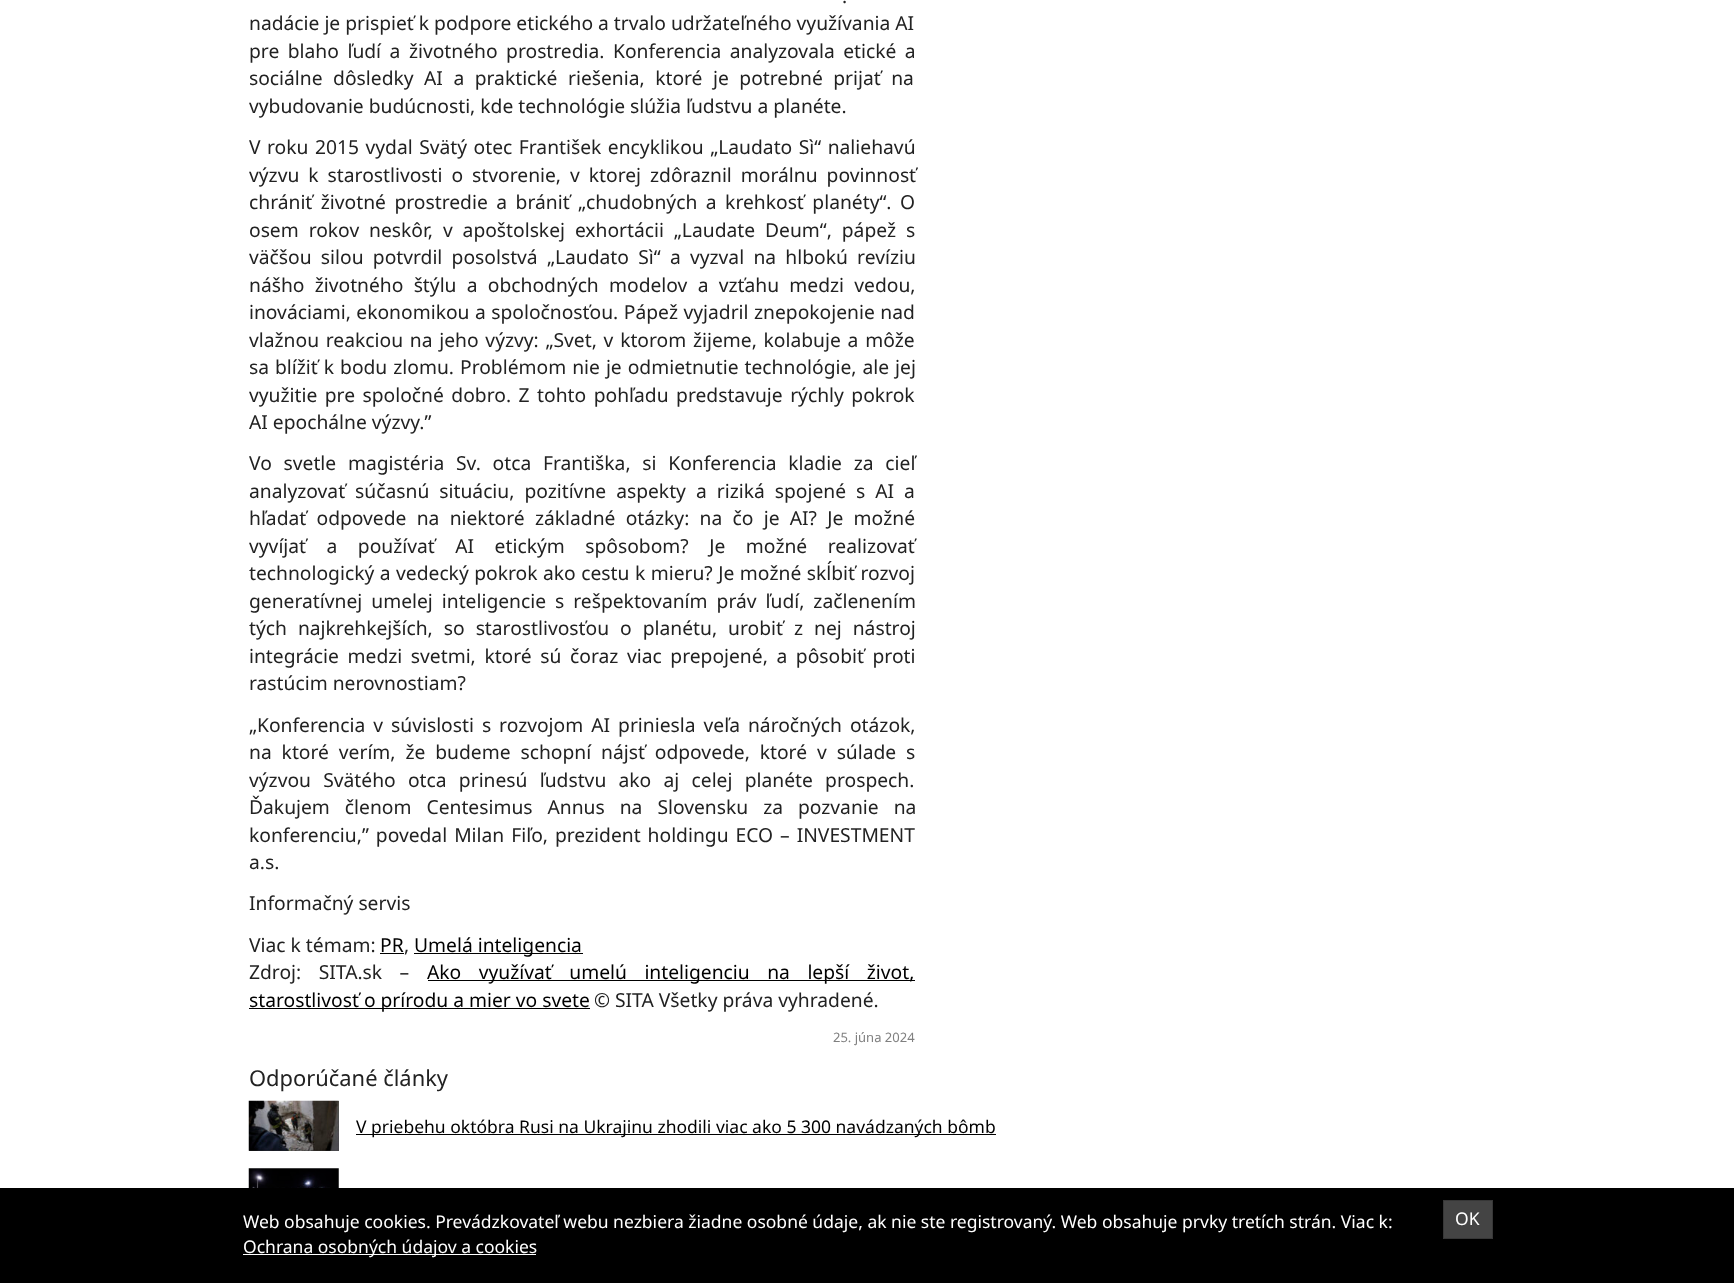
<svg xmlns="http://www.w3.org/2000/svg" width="1734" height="1283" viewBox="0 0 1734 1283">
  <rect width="100%" height="100%" fill="rgb(255,255,255)"/>
  <g font-family="Noto Sans" font-size="19.25" fill="rgb(34,34,34)">
    <text x="842" y="3">.</text>
    <text>
      <tspan x="249" y="30">nadácie je prispieť k podpore etického a trvalo udržateľného využívania AI</tspan>
      <tspan x="249" y="58" word-spacing="3.5">pre blaho ľudí a životného prostredia. Konferencia analyzovala etické a</tspan>
      <tspan x="249" y="85" word-spacing="5.5">sociálne dôsledky AI a praktické riešenia, ktoré je potrebné prijať na</tspan>
      <tspan x="249" y="113">vybudovanie budúcnosti, kde technológie slúžia ľudstvu a planéte.</tspan>
    </text>
    <text>
      <tspan x="249" y="154" word-spacing="1.5">V roku 2015 vydal Svätý otec František encyklikou „Laudato Sì“ naliehavú</tspan>
      <tspan x="249" y="182" word-spacing="4">výzvu k starostlivosti o stvorenie, v ktorej zdôraznil morálnu povinnosť</tspan>
      <tspan x="249" y="209" word-spacing="3.5">chrániť životné prostredie a brániť „chudobných a krehkosť planéty“. O</tspan>
      <tspan x="249" y="237" word-spacing="4.9">osem rokov neskôr, v apoštolskej exhortácii „Laudate Deum“, pápež s</tspan>
      <tspan x="249" y="264" word-spacing="4.25">väčšou silou potvrdil posolstvá „Laudato Sì“ a vyzval na hlbokú revíziu</tspan>
      <tspan x="249" y="292" word-spacing="5.25">nášho životného štýlu a obchodných modelov a vzťahu medzi vedou,</tspan>
      <tspan x="249" y="319" word-spacing="0.5">inováciami, ekonomikou a spoločnosťou. Pápež vyjadril znepokojenie nad</tspan>
      <tspan x="249" y="347" word-spacing="1.75">vlažnou reakciou na jeho výzvy: „Svet, v ktorom žijeme, kolabuje a môže</tspan>
      <tspan x="249" y="374" word-spacing="1">sa blížiť k bodu zlomu. Problémom nie je odmietnutie technológie, ale jej</tspan>
      <tspan x="249" y="402" word-spacing="2.5">využitie pre spoločné dobro. Z tohto pohľadu predstavuje rýchly pokrok</tspan>
      <tspan x="249" y="429">AI epochálne výzvy.”</tspan>
    </text>
    <text>
      <tspan x="249" y="470" word-spacing="6.75">Vo svetle magistéria Sv. otca Františka, si Konferencia kladie za cieľ</tspan>
      <tspan x="249" y="498" word-spacing="5">analyzovať súčasnú situáciu, pozitívne aspekty a riziká spojené s AI a</tspan>
      <tspan x="249" y="525" word-spacing="5.25">hľadať odpovede na niektoré základné otázky: na čo je AI? Je možné</tspan>
      <tspan x="249" y="553" word-spacing="15.5">vyvíjať a používať AI etickým spôsobom? Je možné realizovať</tspan>
      <tspan x="249" y="580" word-spacing="0.5">technologický a vedecký pokrok ako cestu k mieru? Je možné skĺbiť rozvoj</tspan>
      <tspan x="249" y="608" word-spacing="4">generatívnej umelej inteligencie s rešpektovaním práv ľudí, začlenením</tspan>
      <tspan x="249" y="635" word-spacing="6">tých najkrehkejších, so starostlivosťou o planétu, urobiť z nej nástroj</tspan>
      <tspan x="249" y="663" word-spacing="3.6">integrácie medzi svetmi, ktoré sú čoraz viac prepojené, a pôsobiť proti</tspan>
      <tspan x="249" y="690">rastúcim nerovnostiam?</tspan>
    </text>
    <text>
      <tspan x="249" y="732" word-spacing="3">„Konferencia v súvislosti s rozvojom AI priniesla veľa náročných otázok,</tspan>
      <tspan x="249" y="759" word-spacing="4.9">na ktoré verím, že budeme schopní nájsť odpovede, ktoré v súlade s</tspan>
      <tspan x="249" y="787" word-spacing="7.25">výzvou Svätého otca prinesú ľudstvu ako aj celej planéte prospech.</tspan>
      <tspan x="249" y="814" word-spacing="10">Ďakujem členom Centesimus Annus na Slovensku za pozvanie na</tspan>
      <tspan x="249" y="842" word-spacing="2">konferenciu,” povedal Milan Fiľo, prezident holdingu ECO – INVESTMENT</tspan>
      <tspan x="249" y="869">a.s.</tspan>
    </text>
    <text x="249" y="910">Informačný servis</text>
    <text x="249" y="952">Viac k témam:</text>
  </g>
  <text x="380" y="952" font-family="Noto Sans" font-size="19.25" fill="rgb(0,0,0)">PR</text>
  <rect x="380" y="953" width="24" height="1" fill="rgb(0,0,0)"/>
  <text x="404" y="952" font-family="Noto Sans" font-size="19.25" fill="rgb(34,34,34)">,</text>
  <rect x="414" y="953" width="169" height="1" fill="rgb(0,0,0)"/>
  <text x="414" y="952" font-family="Noto Sans" font-size="19.25" fill="rgb(0,0,0)">Umelá inteligencia</text>
  <text x="249" y="979" word-spacing="12.5" font-family="Noto Sans" font-size="19.25" fill="rgb(34,34,34)">Zdroj: SITA.sk –</text>
  <rect x="428" y="980" width="487" height="1" fill="rgb(0,0,0)"/>
  <text x="427" y="979" word-spacing="12.5" font-family="Noto Sans" font-size="19.25" fill="rgb(0,0,0)">Ako využívať umelú inteligenciu na lepší život,</text>
  <rect x="249" y="1008" width="341" height="1" fill="rgb(0,0,0)"/>
  <text x="249" y="1007" font-family="Noto Sans" font-size="19.25" fill="rgb(0,0,0)">starostlivosť o prírodu a mier vo svete</text>
  <text x="594" y="1007" font-family="Noto Sans" font-size="19.25" fill="rgb(34,34,34)">© SITA Všetky práva vyhradené.</text>
  <text x="833" y="1042" font-family="Noto Sans" font-size="13" fill="rgb(128,128,128)">25. júna 2024</text>
  <text x="249" y="1086" font-family="Noto Sans" font-size="21.9" fill="rgb(34,34,34)">Odporúčané články</text>
  <rect x="249" y="1101" width="90" height="50" fill="rgb(68,68,68)"/>
  <image x="248" y="1100" width="91" height="51" href="pic1.png"/>
  <rect x="356" y="1134" width="640" height="1" fill="rgb(0,0,0)"/>
  <text x="356" y="1133" font-family="Noto Sans" font-size="17.5" fill="rgb(0,0,0)">V priebehu októbra Rusi na Ukrajinu zhodili viac ako 5 300 navádzaných bômb</text>
  <image x="248" y="1168" width="91" height="20" href="pic2.png"/>
  <rect x="0" y="1188" width="1734" height="95" fill="rgb(0,0,0)"/>
  <text x="243" y="1228" font-family="Noto Sans" font-size="17.5" fill="rgb(255,255,255)">Web obsahuje cookies. Prevádzkovateľ webu nezbiera žiadne osobné údaje, ak nie ste registrovaný. Web obsahuje prvky tretích strán. Viac k:</text>
  <rect x="243" y="1254" width="293" height="1" fill="rgb(255,255,255)"/>
  <text x="243" y="1253" font-family="Noto Sans" font-size="17.5" fill="rgb(255,255,255)">Ochrana osobných údajov a cookies</text>
  <rect x="1443.5" y="1200.5" width="49" height="38" fill="rgb(68,68,68)" stroke="rgb(55,55,55)"/>
  <text x="1455" y="1225" font-family="Noto Sans" font-size="17.5" fill="rgb(255,255,255)">OK</text>
</svg>
